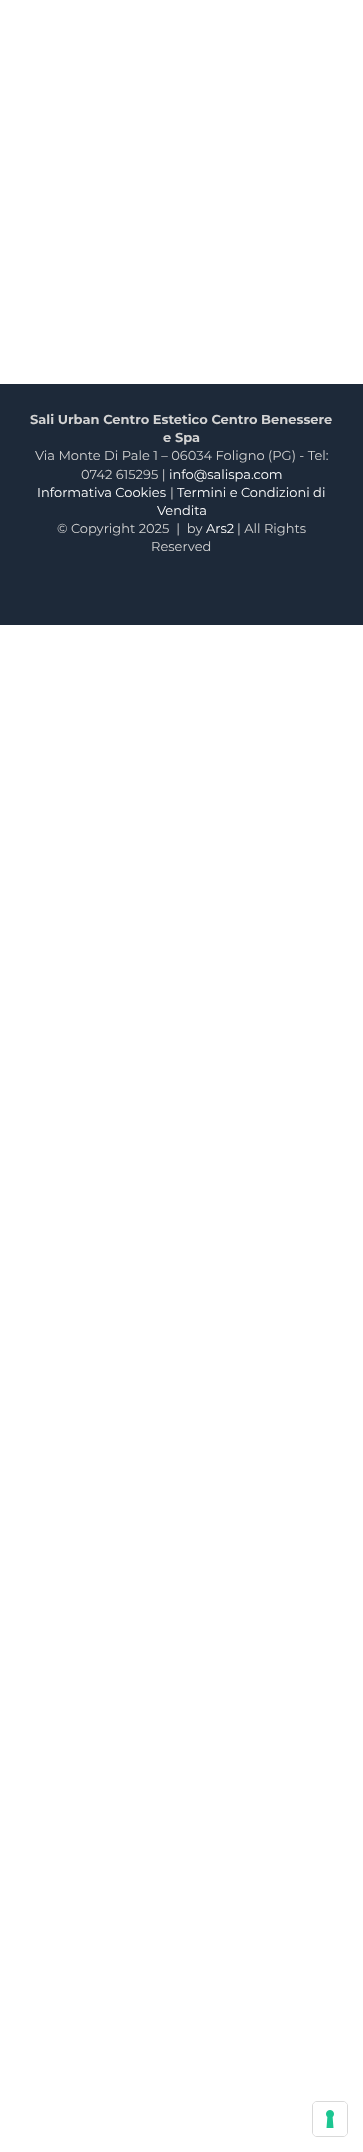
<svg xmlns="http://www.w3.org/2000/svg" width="363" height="2152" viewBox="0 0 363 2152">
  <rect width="100%" height="100%" fill="rgb(255,255,255)"/>
  <rect x="0" y="384" width="363" height="241" fill="rgb(29,41,57)"/>
  <g font-family="Montserrat" font-size="13" font-weight="bold" fill="rgb(211,211,211)">
    <text x="30" y="424">Sali Urban Centro Estetico Centro Benessere</text>
    <text x="163" y="442">e Spa</text>
  </g>
  <g font-family="Montserrat" font-size="13" fill="rgb(211,211,211)">
    <text x="35" y="460">Via Monte Di Pale 1 – 06034 Foligno (PG) - Tel:</text>
    <text x="81" y="479">0742 615295 |</text>
  </g>
  <g font-family="Montserrat" font-size="13" fill="rgb(255,255,255)">
    <text x="169" y="479">info@salispa.com</text>
    <text x="37" y="497">Informativa Cookies</text>
  </g>
  <text x="170" y="497" font-family="Montserrat" font-size="13" fill="rgb(211,211,211)">|</text>
  <g font-family="Montserrat" font-size="13" fill="rgb(255,255,255)">
    <text x="177" y="497">Termini e Condizioni di</text>
    <text x="157" y="515">Vendita</text>
  </g>
  <text x="57" y="533" font-family="Montserrat" font-size="13" fill="rgb(211,211,211)" xml:space="preserve">© Copyright 2025  |  by</text>
  <text x="206" y="533" font-family="Montserrat" font-size="13" fill="rgb(255,255,255)">Ars2</text>
  <g font-family="Montserrat" font-size="13" fill="rgb(211,211,211)">
    <text x="237" y="533">| All Rights</text>
    <text x="151" y="551">Reserved</text>
  </g>
  <rect x="312.5" y="2101.5" width="35" height="35" rx="4.5" fill="none" stroke="rgb(217,217,217)"/>
  <rect x="313" y="2102" width="34" height="34" rx="4" fill="rgb(255,255,255)"/>
  <image x="326" y="2110" width="8" height="18" href="pic1.png"/>
</svg>
